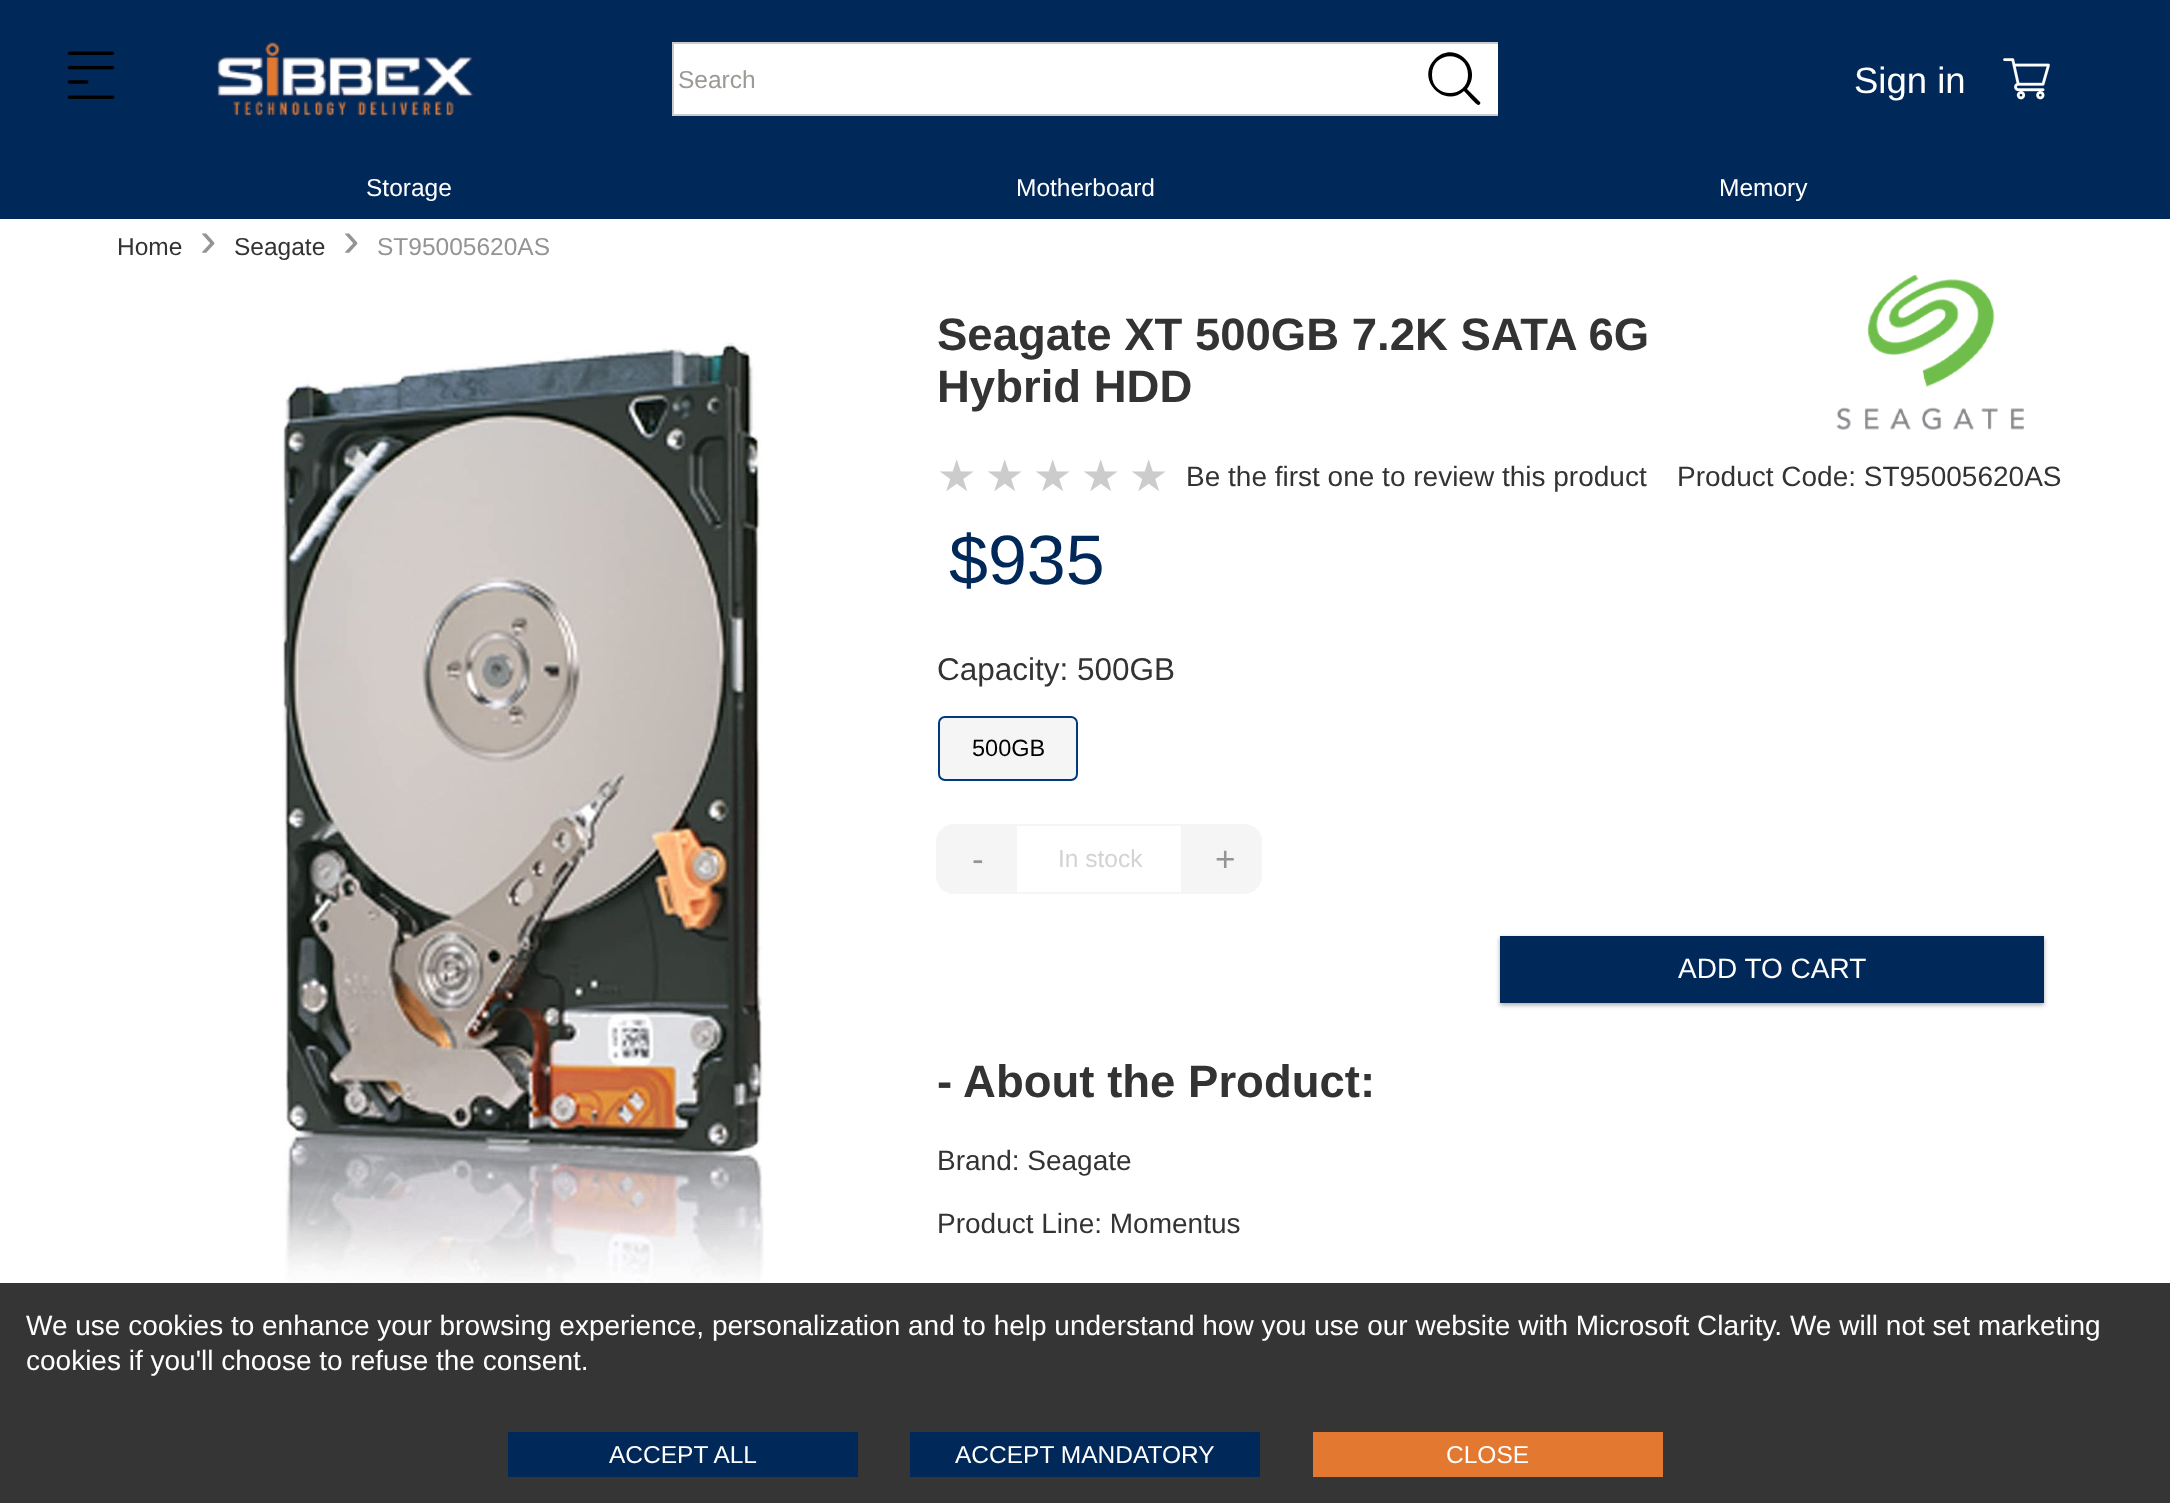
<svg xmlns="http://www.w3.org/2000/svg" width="2170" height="1503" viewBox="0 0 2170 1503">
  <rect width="100%" height="100%" fill="rgb(255,255,255)"/>
  <rect x="0" y="0" width="2170" height="219" fill="rgb(0,40,89)"/>
  <image x="67" y="51" width="48" height="48" href="pic1.png"/>
  <image x="216" y="42" width="259" height="75" href="pic2.png"/>
  <rect x="674" y="44" width="824" height="70" fill="rgb(255,255,255)"/>
  <rect x="672" y="42" width="826" height="2" fill="rgb(204,204,204)"/>
  <rect x="672" y="114" width="826" height="2" fill="rgb(204,204,204)"/>
  <rect x="672" y="42" width="2" height="74" fill="rgb(204,204,204)"/>
  <text x="678" y="88" font-family="Liberation Sans" font-size="24.5" fill="rgb(157,153,148)">Search</text>
  <path d="M1480 102L1467 89C1484 68 1455 39 1435 59C1415 79 1444 109 1464 91C1466 93 1477 106 1479 105C1480 104 1481 103 1480 102ZM1432 75C1432 50 1468 50 1468 75C1468 99 1432 99 1432 75Z" fill="rgb(0,0,0)"/>
  <text x="1854" y="93" font-family="Liberation Sans" font-size="36.5" fill="rgb(255,255,255)">Sign in</text>
  <image x="2003" y="58" width="47" height="42" href="pic3.png"/>
  <g font-family="Liberation Sans" font-size="24.5" fill="rgb(255,255,255)">
    <text x="366" y="196">Storage</text>
    <text x="1016" y="196">Motherboard</text>
    <text x="1719" y="196">Memory</text>
  </g>
  <text x="117" y="255" font-family="Liberation Sans" font-size="24.5" fill="rgb(51,51,51)">Home</text>
  <text x="200" y="256" font-family="Liberation Sans" font-size="49" fill="rgb(148,148,148)">›</text>
  <text x="234" y="255" font-family="Liberation Sans" font-size="24.5" fill="rgb(51,51,51)">Seagate</text>
  <text x="343" y="256" font-family="Liberation Sans" font-size="49" fill="rgb(148,148,148)">›</text>
  <text x="377" y="255" font-family="Liberation Sans" font-size="24.5" fill="rgb(148,148,148)">ST95005620AS</text>
  <image x="282" y="342" width="482" height="941" href="pic4.png"/>
  <g font-family="Liberation Sans" font-size="45.5" font-weight="bold" fill="rgb(51,51,51)">
    <text>
      <tspan x="937" y="350">Seagate XT 500GB 7.2K SATA 6G</tspan>
      <tspan x="937" y="402">Hybrid HDD</tspan>
    </text>
  </g>
  <image x="1836" y="275" width="188" height="155" href="pic5.png"/>
  <g font-family="DejaVu Sans" font-size="44" fill="rgb(204,204,204)">
    <text x="937" y="491">★</text>
    <text x="985" y="491">★</text>
    <text x="1033" y="491">★</text>
    <text x="1081" y="491">★</text>
    <text x="1129" y="491">★</text>
  </g>
  <g font-family="Liberation Sans" font-size="28" fill="rgb(51,51,51)">
    <text x="1186" y="486">Be the first one to review this product</text>
    <text x="1677" y="486">Product Code: ST95005620AS</text>
  </g>
  <text x="949" y="584" font-family="Liberation Sans" font-size="70" fill="rgb(0,40,89)">$935</text>
  <text x="937" y="680" font-family="Liberation Sans" font-size="31.5" fill="rgb(51,51,51)">Capacity: 500GB</text>
  <rect x="939" y="717" width="138" height="63" rx="6" fill="rgb(245,245,245)" stroke="rgb(0,57,128)" stroke-width="2"/>
  <text x="972" y="756" font-family="Liberation Sans" font-size="23.5" fill="rgb(0,0,0)">500GB</text>
  <path d="M954 824H1015V894H954C944 894 936 886 936 876V842C936 832 944 824 954 824Z" fill="rgb(245,245,245)"/>
  <text x="972" y="871" font-family="Liberation Sans" font-size="35" fill="rgb(148,148,148)">-</text>
  <rect x="1016" y="825" width="166" height="68" fill="none" stroke="rgb(245,245,245)" stroke-width="2"/>
  <text x="1058" y="867" font-family="Liberation Sans" font-size="24.5" fill="rgb(211,211,211)">In stock</text>
  <path d="M1183 824H1244C1254 824 1262 832 1262 842V876C1262 886 1254 894 1244 894H1183Z" fill="rgb(245,245,245)"/>
  <text x="1215" y="871" font-family="Liberation Sans" font-size="35" fill="rgb(148,148,148)">+</text>
  <rect x="1500" y="938" width="544" height="67" fill="rgba(0,0,0,0.24)" filter="blur(2px)"/>
  <rect x="1500" y="938" width="544" height="67" fill="rgba(0,0,0,0.12)" filter="blur(2.5px)"/>
  <rect x="1500" y="936" width="544" height="67" fill="rgb(0,40,89)"/>
  <text x="1678" y="978" font-family="Liberation Sans" font-size="28" fill="rgb(255,255,255)">ADD TO CART</text>
  <text x="937" y="1097" font-family="Liberation Sans" font-size="45.5" font-weight="bold" fill="rgb(51,51,51)">- About the Product:</text>
  <g font-family="Liberation Sans" font-size="28" fill="rgb(51,51,51)">
    <text x="937" y="1170">Brand: Seagate</text>
    <text x="937" y="1233">Product Line: Momentus</text>
  </g>
  <rect x="0" y="1283" width="2170" height="220" fill="rgb(53,53,53)"/>
  <g font-family="Liberation Sans" font-size="28" fill="rgb(255,255,255)">
    <text>
      <tspan x="26" y="1335">We use cookies to enhance your browsing experience, personalization and to help understand how you use our website with Microsoft Clarity. We will not set marketing</tspan>
      <tspan x="26" y="1370">cookies if you'll choose to refuse the consent.</tspan>
    </text>
  </g>
  <rect x="508" y="1432" width="350" height="45" fill="rgb(0,40,89)"/>
  <text x="609" y="1463" font-family="Liberation Sans" font-size="24.5" fill="rgb(255,255,255)">ACCEPT ALL</text>
  <rect x="910" y="1432" width="350" height="45" fill="rgb(0,40,89)"/>
  <text x="955" y="1463" font-family="Liberation Sans" font-size="24.5" fill="rgb(255,255,255)">ACCEPT MANDATORY</text>
  <rect x="1313" y="1432" width="350" height="45" fill="rgb(227,121,48)"/>
  <text x="1446" y="1463" font-family="Liberation Sans" font-size="24.5" fill="rgb(255,255,255)">CLOSE</text>
</svg>
